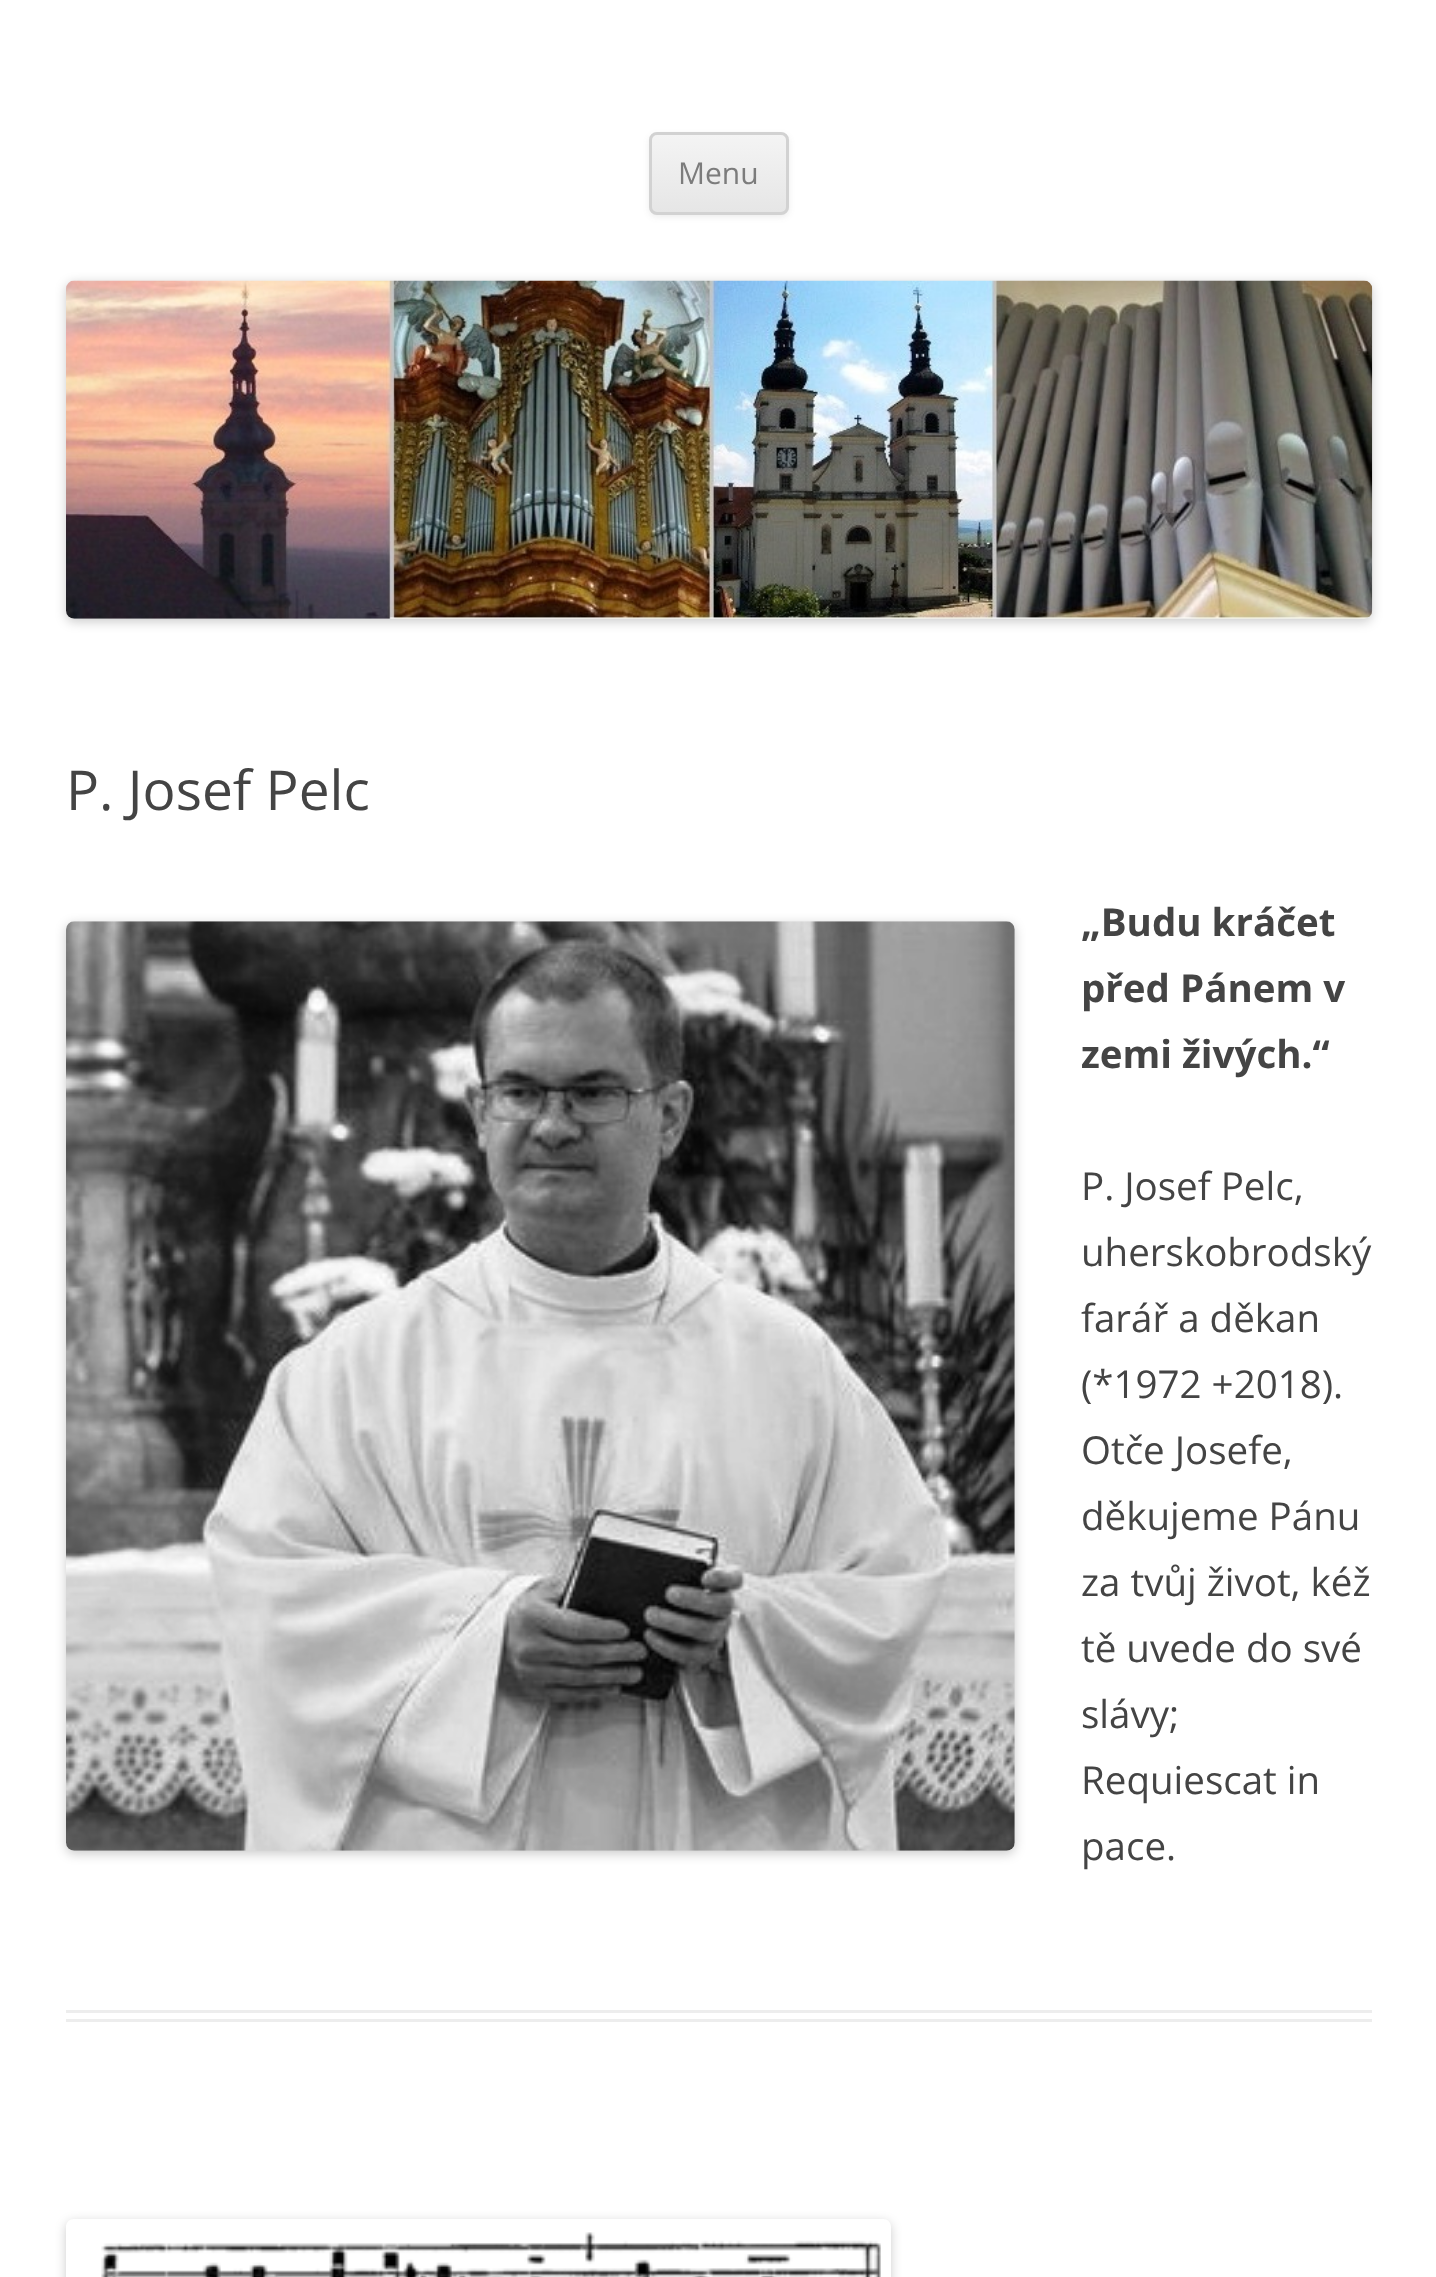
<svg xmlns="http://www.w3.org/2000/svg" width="1436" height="2277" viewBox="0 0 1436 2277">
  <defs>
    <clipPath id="clip1"><rect x="649" y="132" width="140" height="83" rx="8"/></clipPath>
    <linearGradient id="g1" gradientUnits="userSpaceOnUse" x1="719" y1="135" x2="719" y2="212"><stop offset="0" stop-color="rgb(244,244,244)"/><stop offset="1" stop-color="rgb(230,230,230)"/></linearGradient>
    <clipPath id="clip2"><path d="M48 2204H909V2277H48ZM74 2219H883C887.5 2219 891 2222.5 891 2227V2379C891 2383.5 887.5 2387 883 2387H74C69.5 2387 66 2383.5 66 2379V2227C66 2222.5 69.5 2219 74 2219Z" clip-rule="evenodd"/></clipPath>
  </defs>
  <rect width="100%" height="100%" fill="rgb(255,255,255)"/>
  <rect x="649" y="135" width="140" height="82" rx="8" fill="rgba(64,64,64,0.1)" filter="blur(3px)"/>
  <g clip-path="url(#clip1)">
    <rect x="649" y="135" width="140" height="77" fill="url(#g1)"/>
  </g>
  <rect x="650.5" y="133.5" width="137" height="80" rx="6.5" fill="none" stroke="rgb(210,210,210)" stroke-width="3"/>
  <text x="678" y="184" font-family="Open Sans" font-size="30" fill="rgb(124,124,124)">Menu</text>
  <rect x="66" y="283" width="1306" height="339" rx="8" fill="rgba(0,0,0,0.2)" filter="blur(5.5px)"/>
  <image x="66" y="280" width="1307" height="339" href="pic1.png"/>
  <rect x="66" y="2010" width="1306" height="3" fill="rgb(237,237,237)"/>
  <rect x="66" y="2019" width="1306" height="3" fill="rgb(237,237,237)"/>
  <text x="66" y="810" font-family="Open Sans" font-size="55" fill="rgb(68,68,68)">P. Josef Pelc</text>
  <rect x="66" y="924" width="949" height="930" rx="8" fill="rgba(0,0,0,0.2)" filter="blur(5.5px)"/>
  <image x="66" y="921" width="949" height="930" href="pic2.png"/>
  <g font-family="Open Sans" font-size="38.5" font-weight="bold" fill="rgb(68,68,68)">
    <text>
      <tspan x="1081" y="936">„Budu kráčet</tspan>
      <tspan x="1081" y="1002">před Pánem v</tspan>
      <tspan x="1081" y="1068">zemi živých.“</tspan>
    </text>
  </g>
  <g font-family="Open Sans" font-size="38.5" fill="rgb(68,68,68)">
    <text>
      <tspan x="1081" y="1200">P. Josef Pelc,</tspan>
      <tspan x="1081" y="1266">uherskobrodský</tspan>
      <tspan x="1081" y="1332">farář a děkan</tspan>
      <tspan x="1081" y="1398">(*1972 +2018).</tspan>
      <tspan x="1081" y="1464">Otče Josefe,</tspan>
      <tspan x="1081" y="1530">děkujeme Pánu</tspan>
      <tspan x="1081" y="1596">za tvůj život, kéž</tspan>
      <tspan x="1081" y="1662">tě uvede do své</tspan>
      <tspan x="1081" y="1728">slávy;</tspan>
      <tspan x="1081" y="1794">Requiescat in</tspan>
      <tspan x="1081" y="1860">pace.</tspan>
    </text>
  </g>
  <g clip-path="url(#clip2)">
    <rect x="66" y="2222" width="825" height="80" rx="8" fill="rgba(0,0,0,0.2)" filter="blur(5.5px)"/>
  </g>
  <image x="101" y="2232" width="780" height="45" href="pic3.png"/>
</svg>
